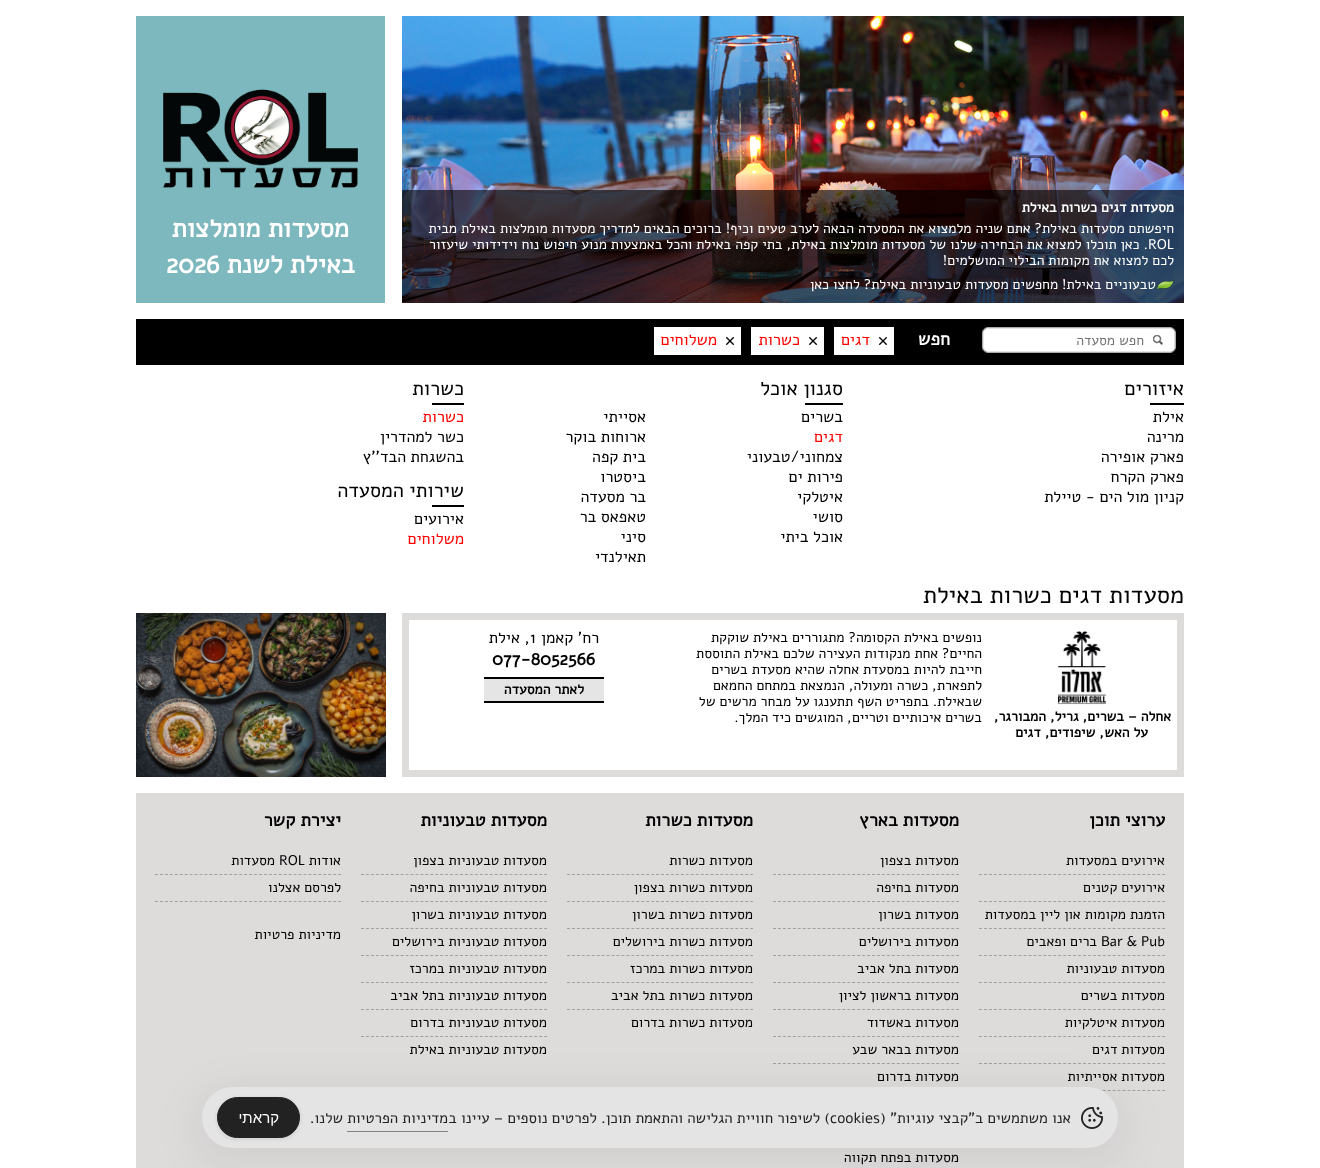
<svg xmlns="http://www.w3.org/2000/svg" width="1320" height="1168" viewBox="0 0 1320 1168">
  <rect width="100%" height="100%" fill="rgb(255,255,255)"/>
  <image x="402" y="16" width="782" height="287" href="pic1.png"/>
  <rect x="402" y="190" width="782" height="113" fill="rgba(0,0,0,0.61)"/>
  <text x="1174" y="212" font-family="Alef" font-size="14" font-weight="bold" direction="rtl" fill="rgb(255,255,255)">מסעדות דגים כשרות באילת</text>
  <text x="1174" y="233" font-family="Alef" font-size="14" direction="rtl" fill="rgb(255,255,255)">חיפשתם מסעדות באילת? אתם שניה מלמצוא את המסעדה הבאה לערב טעים וכיף! ברוכים הבאים למדריך מסעדות מומלצות באילת מבית</text>
  <text x="1148" y="249" font-family="Alef" font-size="14" fill="rgb(255,255,255)">ROL</text>
  <g font-family="Alef" font-size="14" direction="rtl" fill="rgb(255,255,255)">
    <text x="1148" y="249">. כאן תוכלו למצוא את הבחירה שלנו של מסעדות מומלצות באילת, בתי קפה באילת והכל באמצעות מנוע חיפוש נוח וידידותי שיעזור</text>
    <text x="1174" y="265">לכם למצוא את מקומות הבילוי המושלמים!</text>
  </g>
  <image x="1156" y="280" width="18" height="9" href="pic2.png"/>
  <text x="1156" y="289" font-family="Alef" font-size="14" direction="rtl" fill="rgb(255,255,255)">טבעוניים באילת! מחפשים מסעדות טבעוניות באילת? לחצו כאן</text>
  <rect x="136" y="16" width="249" height="287" fill="rgb(124,184,189)"/>
  <image x="163" y="89" width="195" height="99" href="pic3.png"/>
  <g font-family="Alef" font-size="26" font-weight="bold" direction="rtl" fill="rgb(255,255,255)">
    <text x="349" y="237">מסעדות מומלצות</text>
    <text x="355" y="273">באילת לשנת</text>
  </g>
  <text x="166" y="273" font-family="Alef" font-size="26" font-weight="bold" fill="rgb(255,255,255)">2026</text>
  <rect x="136" y="319" width="1048" height="46" fill="rgb(0,0,0)"/>
  <rect x="982.5" y="327.5" width="193" height="25" rx="5.5" fill="none" stroke="rgb(172,172,172)"/>
  <rect x="983" y="328" width="192" height="24" rx="5" fill="rgb(255,255,255)"/>
  <image x="1153" y="335" width="10" height="10" href="pic4.png"/>
  <rect x="983.5" y="328.5" width="191" height="23" rx="4.5" fill="none" stroke="rgb(228,228,228)"/>
  <text x="1144" y="345" font-family="Alef" font-size="14" direction="rtl" fill="rgb(117,117,117)">חפש מסעדה</text>
  <text x="950" y="345" font-family="Alef" font-size="18" font-weight="bold" direction="rtl" fill="rgb(255,255,255)">חפש</text>
  <rect x="834" y="327" width="60" height="28" fill="rgb(255,255,255)"/>
  <image x="879" y="337" width="8" height="8" href="pic5.png"/>
  <text x="870" y="345" font-family="Alef" font-size="16" direction="rtl" fill="rgb(255,0,0)">דגים</text>
  <rect x="751" y="327" width="73" height="28" fill="rgb(255,255,255)"/>
  <image x="809" y="337" width="8" height="8" href="pic5.png"/>
  <text x="800" y="345" font-family="Alef" font-size="16" direction="rtl" fill="rgb(255,0,0)">כשרות</text>
  <rect x="654" y="327" width="87" height="28" fill="rgb(255,255,255)"/>
  <image x="726" y="337" width="8" height="8" href="pic5.png"/>
  <text x="717" y="345" font-family="Alef" font-size="16" direction="rtl" fill="rgb(255,0,0)">משלוחים</text>
  <text x="1184" y="395" font-family="Alef" font-size="20" direction="rtl" fill="rgb(0,0,0)">איזורים</text>
  <rect x="1150" y="403" width="34" height="2" fill="rgb(0,0,0)"/>
  <g font-family="Alef" font-size="16" direction="rtl" fill="rgb(0,0,0)">
    <text>
      <tspan x="1184" y="422">אילת</tspan>
      <tspan x="1184" y="442">מרינה</tspan>
      <tspan x="1184" y="462">פארק אופירה</tspan>
      <tspan x="1184" y="482">פארק הקרח</tspan>
      <tspan x="1184" y="502">קניון מול הים - טיילת</tspan>
    </text>
  </g>
  <text x="843" y="395" font-family="Alef" font-size="20" direction="rtl" fill="rgb(0,0,0)">סגנון אוכל</text>
  <rect x="805" y="403" width="38" height="2" fill="rgb(0,0,0)"/>
  <text x="843" y="422" font-family="Alef" font-size="16" direction="rtl" fill="rgb(0,0,0)">בשרים</text>
  <text x="843" y="442" font-family="Alef" font-size="16" direction="rtl" fill="rgb(255,0,0)">דגים</text>
  <g font-family="Alef" font-size="16" direction="rtl" fill="rgb(0,0,0)">
    <text>
      <tspan x="843" y="462">צמחוני/טבעוני</tspan>
      <tspan x="843" y="482">פירות ים</tspan>
      <tspan x="843" y="502">איטלקי</tspan>
      <tspan x="843" y="522">סושי</tspan>
      <tspan x="843" y="542">אוכל ביתי</tspan>
    </text>
    <text>
      <tspan x="646" y="422">אסייתי</tspan>
      <tspan x="646" y="442">ארוחות בוקר</tspan>
      <tspan x="646" y="462">בית קפה</tspan>
      <tspan x="646" y="482">ביסטרו</tspan>
      <tspan x="646" y="502">בר מסעדה</tspan>
      <tspan x="646" y="522">טאפאס בר</tspan>
      <tspan x="646" y="542">סיני</tspan>
      <tspan x="646" y="562">תאילנדי</tspan>
    </text>
  </g>
  <text x="464" y="395" font-family="Alef" font-size="20" direction="rtl" fill="rgb(0,0,0)">כשרות</text>
  <rect x="432" y="403" width="32" height="2" fill="rgb(0,0,0)"/>
  <text x="464" y="422" font-family="Alef" font-size="16" direction="rtl" fill="rgb(255,0,0)">כשרות</text>
  <g font-family="Alef" font-size="16" direction="rtl" fill="rgb(0,0,0)">
    <text>
      <tspan x="464" y="442">כשר למהדרין</tspan>
      <tspan x="464" y="462">בהשגחת הבד''ץ</tspan>
    </text>
  </g>
  <text x="464" y="497" font-family="Alef" font-size="20" direction="rtl" fill="rgb(0,0,0)">שירותי המסעדה</text>
  <rect x="432" y="505" width="32" height="2" fill="rgb(0,0,0)"/>
  <text x="464" y="524" font-family="Alef" font-size="16" direction="rtl" fill="rgb(0,0,0)">אירועים</text>
  <text x="464" y="544" font-family="Alef" font-size="16" direction="rtl" fill="rgb(255,0,0)">משלוחים</text>
  <text x="1184" y="603" font-family="Alef" font-size="24" direction="rtl" fill="rgb(0,0,0)">מסעדות דגים כשרות באילת</text>
  <rect x="405.5" y="616.5" width="775" height="157" fill="none" stroke="rgb(222,219,219)" stroke-width="7"/>
  <image x="1058" y="631" width="48" height="74" href="pic6.png"/>
  <g font-family="Alef" font-size="14" font-weight="bold" direction="rtl" fill="rgb(0,0,0)">
    <text x="1171" y="721">אחלה – בשרים, גריל, המבורגר,</text>
    <text x="1148" y="737">על האש, שיפודים, דגים</text>
  </g>
  <g font-family="Alef" font-size="14" direction="rtl" fill="rgb(0,0,0)">
    <text>
      <tspan x="982" y="642">נופשים באילת הקסומה? מתגוררים באילת שוקקת</tspan>
      <tspan x="982" y="658">החיים? אחת מנקודות העצירה שלכם באילת התוססת</tspan>
      <tspan x="982" y="674">חייבת להיות במסעדת אחלה שהיא מסעדת בשרים</tspan>
      <tspan x="982" y="690">לתפארת, כשרה ומעולה, הנמצאת במתחם החמאם</tspan>
      <tspan x="982" y="706">שבאילת. בתפריט השף תתענגו על מבחר מרשים של</tspan>
      <tspan x="982" y="722">בשרים איכותיים וטריים, המוגשים כיד המלך.</tspan>
    </text>
  </g>
  <text x="599" y="643" font-family="Alef" font-size="16" direction="rtl" fill="rgb(0,0,0)">רח' קאמן</text>
  <text x="530" y="643" font-family="Alef" font-size="16" fill="rgb(0,0,0)">1</text>
  <text x="530" y="643" font-family="Alef" font-size="16" direction="rtl" fill="rgb(0,0,0)">, אילת</text>
  <text x="492" y="665" font-family="Alef" font-size="18" font-weight="bold" fill="rgb(0,0,0)">077-8052566</text>
  <rect x="484" y="679" width="120" height="22" fill="rgb(229,229,229)"/>
  <rect x="484" y="677" width="120" height="2" fill="rgb(0,0,0)"/>
  <rect x="484" y="701" width="120" height="2" fill="rgb(0,0,0)"/>
  <text x="584" y="694" font-family="Alef" font-size="14" font-weight="bold" direction="rtl" fill="rgb(0,0,0)">לאתר המסעדה</text>
  <image x="136" y="613" width="250" height="164" href="pic7.png"/>
  <rect x="136" y="793" width="1048" height="375" fill="rgb(222,219,219)"/>
  <text x="1165" y="826" font-family="Alef" font-size="18" font-weight="bold" direction="rtl" fill="rgb(0,0,0)">ערוצי תוכן</text>
  <text x="1165" y="865" font-family="Alef" font-size="14" direction="rtl" fill="rgb(0,0,0)">אירועים במסעדות</text>
  <path d="M979 874.5H1165" fill="none" stroke="rgb(161,160,160)" stroke-dasharray="3 1.95"/>
  <text x="1165" y="892" font-family="Alef" font-size="14" direction="rtl" fill="rgb(0,0,0)">אירועים קטנים</text>
  <path d="M979 901.5H1165" fill="none" stroke="rgb(161,160,160)" stroke-dasharray="3 1.95"/>
  <text x="1165" y="919" font-family="Alef" font-size="14" direction="rtl" fill="rgb(0,0,0)">הזמנת מקומות און ליין במסעדות</text>
  <path d="M979 928.5H1165" fill="none" stroke="rgb(161,160,160)" stroke-dasharray="3 1.95"/>
  <text x="1101" y="946" font-family="Alef" font-size="14" fill="rgb(0,0,0)">Bar &amp; Pub</text>
  <text x="1097" y="946" font-family="Alef" font-size="14" direction="rtl" fill="rgb(0,0,0)">ברים ופאבים</text>
  <path d="M979 955.5H1165" fill="none" stroke="rgb(161,160,160)" stroke-dasharray="3 1.95"/>
  <text x="1165" y="973" font-family="Alef" font-size="14" direction="rtl" fill="rgb(0,0,0)">מסעדות טבעוניות</text>
  <path d="M979 982.5H1165" fill="none" stroke="rgb(161,160,160)" stroke-dasharray="3 1.95"/>
  <text x="1165" y="1000" font-family="Alef" font-size="14" direction="rtl" fill="rgb(0,0,0)">מסעדות בשרים</text>
  <path d="M979 1009.5H1165" fill="none" stroke="rgb(161,160,160)" stroke-dasharray="3 1.95"/>
  <text x="1165" y="1027" font-family="Alef" font-size="14" direction="rtl" fill="rgb(0,0,0)">מסעדות איטלקיות</text>
  <path d="M979 1036.5H1165" fill="none" stroke="rgb(161,160,160)" stroke-dasharray="3 1.95"/>
  <text x="1165" y="1054" font-family="Alef" font-size="14" direction="rtl" fill="rgb(0,0,0)">מסעדות דגים</text>
  <path d="M979 1063.5H1165" fill="none" stroke="rgb(161,160,160)" stroke-dasharray="3 1.95"/>
  <text x="1165" y="1081" font-family="Alef" font-size="14" direction="rtl" fill="rgb(0,0,0)">מסעדות אסייתיות</text>
  <path d="M979 1090.5H1165" fill="none" stroke="rgb(161,160,160)" stroke-dasharray="3 1.95"/>
  <text x="959" y="826" font-family="Alef" font-size="18" font-weight="bold" direction="rtl" fill="rgb(0,0,0)">מסעדות בארץ</text>
  <text x="959" y="865" font-family="Alef" font-size="14" direction="rtl" fill="rgb(0,0,0)">מסעדות בצפון</text>
  <path d="M773 874.5H959" fill="none" stroke="rgb(161,160,160)" stroke-dasharray="3 1.95"/>
  <text x="959" y="892" font-family="Alef" font-size="14" direction="rtl" fill="rgb(0,0,0)">מסעדות בחיפה</text>
  <path d="M773 901.5H959" fill="none" stroke="rgb(161,160,160)" stroke-dasharray="3 1.95"/>
  <text x="959" y="919" font-family="Alef" font-size="14" direction="rtl" fill="rgb(0,0,0)">מסעדות בשרון</text>
  <path d="M773 928.5H959" fill="none" stroke="rgb(161,160,160)" stroke-dasharray="3 1.95"/>
  <text x="959" y="946" font-family="Alef" font-size="14" direction="rtl" fill="rgb(0,0,0)">מסעדות בירושלים</text>
  <path d="M773 955.5H959" fill="none" stroke="rgb(161,160,160)" stroke-dasharray="3 1.95"/>
  <text x="959" y="973" font-family="Alef" font-size="14" direction="rtl" fill="rgb(0,0,0)">מסעדות בתל אביב</text>
  <path d="M773 982.5H959" fill="none" stroke="rgb(161,160,160)" stroke-dasharray="3 1.95"/>
  <text x="959" y="1000" font-family="Alef" font-size="14" direction="rtl" fill="rgb(0,0,0)">מסעדות בראשון לציון</text>
  <path d="M773 1009.5H959" fill="none" stroke="rgb(161,160,160)" stroke-dasharray="3 1.95"/>
  <text x="959" y="1027" font-family="Alef" font-size="14" direction="rtl" fill="rgb(0,0,0)">מסעדות באשדוד</text>
  <path d="M773 1036.5H959" fill="none" stroke="rgb(161,160,160)" stroke-dasharray="3 1.95"/>
  <text x="959" y="1054" font-family="Alef" font-size="14" direction="rtl" fill="rgb(0,0,0)">מסעדות בבאר שבע</text>
  <path d="M773 1063.5H959" fill="none" stroke="rgb(161,160,160)" stroke-dasharray="3 1.95"/>
  <g font-family="Alef" font-size="14" direction="rtl" fill="rgb(0,0,0)">
    <text x="959" y="1081">מסעדות בדרום</text>
    <text x="959" y="1162">מסעדות בפתח תקווה</text>
  </g>
  <text x="753" y="826" font-family="Alef" font-size="18" font-weight="bold" direction="rtl" fill="rgb(0,0,0)">מסעדות כשרות</text>
  <text x="753" y="865" font-family="Alef" font-size="14" direction="rtl" fill="rgb(0,0,0)">מסעדות כשרות</text>
  <path d="M567 874.5H753" fill="none" stroke="rgb(161,160,160)" stroke-dasharray="3 1.95"/>
  <text x="753" y="892" font-family="Alef" font-size="14" direction="rtl" fill="rgb(0,0,0)">מסעדות כשרות בצפון</text>
  <path d="M567 901.5H753" fill="none" stroke="rgb(161,160,160)" stroke-dasharray="3 1.95"/>
  <text x="753" y="919" font-family="Alef" font-size="14" direction="rtl" fill="rgb(0,0,0)">מסעדות כשרות בשרון</text>
  <path d="M567 928.5H753" fill="none" stroke="rgb(161,160,160)" stroke-dasharray="3 1.95"/>
  <text x="753" y="946" font-family="Alef" font-size="14" direction="rtl" fill="rgb(0,0,0)">מסעדות כשרות בירושלים</text>
  <path d="M567 955.5H753" fill="none" stroke="rgb(161,160,160)" stroke-dasharray="3 1.95"/>
  <text x="753" y="973" font-family="Alef" font-size="14" direction="rtl" fill="rgb(0,0,0)">מסעדות כשרות במרכז</text>
  <path d="M567 982.5H753" fill="none" stroke="rgb(161,160,160)" stroke-dasharray="3 1.95"/>
  <text x="753" y="1000" font-family="Alef" font-size="14" direction="rtl" fill="rgb(0,0,0)">מסעדות כשרות בתל אביב</text>
  <path d="M567 1009.5H753" fill="none" stroke="rgb(161,160,160)" stroke-dasharray="3 1.95"/>
  <text x="753" y="1027" font-family="Alef" font-size="14" direction="rtl" fill="rgb(0,0,0)">מסעדות כשרות בדרום</text>
  <text x="547" y="826" font-family="Alef" font-size="18" font-weight="bold" direction="rtl" fill="rgb(0,0,0)">מסעדות טבעוניות</text>
  <text x="547" y="865" font-family="Alef" font-size="14" direction="rtl" fill="rgb(0,0,0)">מסעדות טבעוניות בצפון</text>
  <path d="M361 874.5H547" fill="none" stroke="rgb(161,160,160)" stroke-dasharray="3 1.95"/>
  <text x="547" y="892" font-family="Alef" font-size="14" direction="rtl" fill="rgb(0,0,0)">מסעדות טבעוניות בחיפה</text>
  <path d="M361 901.5H547" fill="none" stroke="rgb(161,160,160)" stroke-dasharray="3 1.95"/>
  <text x="547" y="919" font-family="Alef" font-size="14" direction="rtl" fill="rgb(0,0,0)">מסעדות טבעוניות בשרון</text>
  <path d="M361 928.5H547" fill="none" stroke="rgb(161,160,160)" stroke-dasharray="3 1.95"/>
  <text x="547" y="946" font-family="Alef" font-size="14" direction="rtl" fill="rgb(0,0,0)">מסעדות טבעוניות בירושלים</text>
  <path d="M361 955.5H547" fill="none" stroke="rgb(161,160,160)" stroke-dasharray="3 1.95"/>
  <text x="547" y="973" font-family="Alef" font-size="14" direction="rtl" fill="rgb(0,0,0)">מסעדות טבעוניות במרכז</text>
  <path d="M361 982.5H547" fill="none" stroke="rgb(161,160,160)" stroke-dasharray="3 1.95"/>
  <text x="547" y="1000" font-family="Alef" font-size="14" direction="rtl" fill="rgb(0,0,0)">מסעדות טבעוניות בתל אביב</text>
  <path d="M361 1009.5H547" fill="none" stroke="rgb(161,160,160)" stroke-dasharray="3 1.95"/>
  <text x="547" y="1027" font-family="Alef" font-size="14" direction="rtl" fill="rgb(0,0,0)">מסעדות טבעוניות בדרום</text>
  <path d="M361 1036.5H547" fill="none" stroke="rgb(161,160,160)" stroke-dasharray="3 1.95"/>
  <text x="547" y="1054" font-family="Alef" font-size="14" direction="rtl" fill="rgb(0,0,0)">מסעדות טבעוניות באילת</text>
  <text x="341" y="826" font-family="Alef" font-size="18" font-weight="bold" direction="rtl" fill="rgb(0,0,0)">יצירת קשר</text>
  <text x="341" y="865" font-family="Alef" font-size="14" direction="rtl" fill="rgb(0,0,0)">אודות</text>
  <text x="279" y="865" font-family="Alef" font-size="14" fill="rgb(0,0,0)">ROL</text>
  <text x="275" y="865" font-family="Alef" font-size="14" direction="rtl" fill="rgb(0,0,0)">מסעדות</text>
  <path d="M155 874.5H341" fill="none" stroke="rgb(161,160,160)" stroke-dasharray="3 1.95"/>
  <text x="341" y="892" font-family="Alef" font-size="14" direction="rtl" fill="rgb(0,0,0)">לפרסם אצלנו</text>
  <path d="M155 901.5H341" fill="none" stroke="rgb(161,160,160)" stroke-dasharray="3 1.95"/>
  <text x="341" y="939" font-family="Alef" font-size="14" direction="rtl" fill="rgb(0,0,0)">מדיניות פרטיות</text>
  <rect x="192" y="1087" width="936" height="81" rx="40.5" fill="rgba(0,0,0,0.05)" filter="blur(20px)"/>
  <rect x="202" y="1087" width="916" height="61" rx="30.5" fill="rgb(228,228,228)"/>
  <image x="1081" y="1107" width="22" height="22" href="pic8.png"/>
  <text x="1071" y="1123" font-family="Alef" font-size="15" direction="rtl" fill="rgb(34,34,34)">אנו משתמשים ב"קבצי עוגיות" (</text>
  <text x="830" y="1123" font-family="Alef" font-size="15" fill="rgb(34,34,34)">cookies</text>
  <g font-family="Alef" font-size="15" direction="rtl" fill="rgb(34,34,34)">
    <text x="830" y="1123">) לשיפור חוויית הגלישה והתאמת תוכן. לפרטים נוספים – עיינו ב</text>
    <text x="448" y="1123">מדיניות הפרטיות</text>
  </g>
  <rect x="347" y="1131" width="101" height="1" fill="rgb(131,131,131)"/>
  <text x="343" y="1123" font-family="Alef" font-size="15" direction="rtl" fill="rgb(34,34,34)">שלנו.</text>
  <rect x="217" y="1098" width="83" height="41" rx="20.5" fill="rgba(0,0,0,0.1)" filter="blur(2px)"/>
  <rect x="217.5" y="1097.5" width="82" height="40" rx="20" fill="rgb(34,34,34)" stroke="rgb(34,34,34)"/>
  <text x="279" y="1123" font-family="Liberation Sans" font-size="15" direction="rtl" fill="rgb(255,255,255)">קראתי</text>
</svg>
